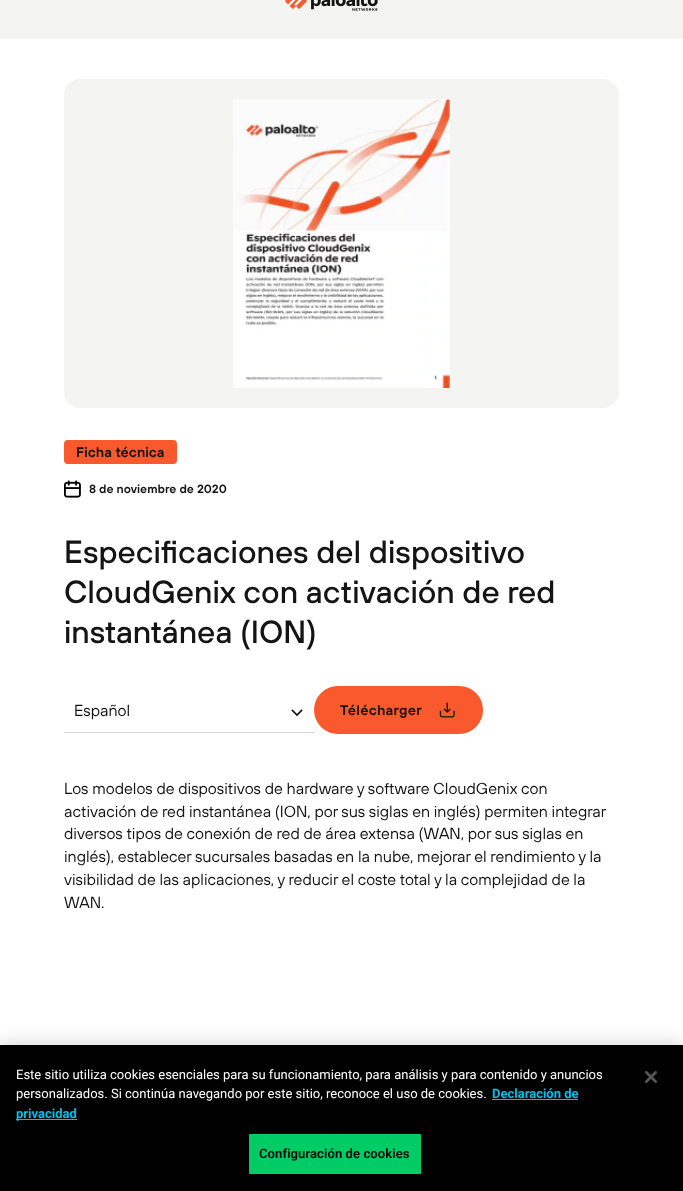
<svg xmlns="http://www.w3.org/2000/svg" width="683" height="1191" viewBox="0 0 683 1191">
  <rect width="100%" height="100%" fill="rgb(255,255,255)"/>
  <rect x="0" y="0" width="683" height="39" fill="rgb(244,244,242)"/>
  <image x="284" y="0" width="94" height="11" href="pic1.png"/>
  <rect x="64" y="79" width="555" height="329" rx="16" fill="rgb(244,244,242)"/>
  <image x="233" y="99" width="217" height="289" href="pic2.png"/>
  <rect x="64" y="440" width="113" height="24" rx="4" fill="rgb(250,88,45)"/>
  <text x="76" y="457" font-family="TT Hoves" font-size="14" font-weight="600" fill="rgb(20,20,20)">Ficha técnica</text>
  <image x="64" y="480" width="17" height="18" href="pic3.png"/>
  <text x="89" y="493" font-family="TT Hoves" font-size="12" font-weight="600" fill="rgb(20,20,20)">8 de noviembre de 2020</text>
  <g font-family="TT Hoves" font-size="32" font-weight="500" fill="rgb(20,20,20)">
    <text>
      <tspan x="64" y="563">Especificaciones del dispositivo</tspan>
      <tspan x="64" y="603">CloudGenix con activación de red</tspan>
      <tspan x="64" y="643">instantánea (ION)</tspan>
    </text>
  </g>
  <rect x="64" y="732" width="250" height="1" fill="rgb(216,216,216)"/>
  <text x="74" y="716" font-family="TT Hoves" font-size="16" fill="rgb(20,20,20)">Español</text>
  <path d="M292.5 710.5L297 715L301.5 710.5" fill="none" stroke="rgb(20,20,20)" stroke-width="1.7" stroke-linecap="square"/>
  <rect x="314" y="686" width="169" height="48" rx="24" fill="rgb(250,88,45)"/>
  <text x="340" y="715" font-family="TT Hoves" font-size="14" font-weight="600" letter-spacing="0.25" fill="rgb(20,20,20)">Télécharger</text>
  <image x="439" y="702" width="16" height="16" href="pic4.png"/>
  <g font-family="TT Hoves" font-size="16" fill="rgb(20,20,20)">
    <text>
      <tspan x="64" y="794">Los modelos de dispositivos de hardware y software CloudGenix con</tspan>
      <tspan x="64" y="817">activación de red instantánea (ION, por sus siglas en inglés) permiten integrar</tspan>
      <tspan x="64" y="839">diversos tipos de conexión de red de área extensa (WAN, por sus siglas en</tspan>
      <tspan x="64" y="862">inglés), establecer sucursales basadas en la nube, mejorar el rendimiento y la</tspan>
      <tspan x="64" y="885">visibilidad de las aplicaciones, y reducir el coste total y la complejidad de la</tspan>
      <tspan x="64" y="908">WAN.</tspan>
    </text>
  </g>
  <rect x="0" y="1045" width="683" height="146" fill="rgba(0,0,0,0.2)" filter="blur(9px)"/>
  <rect x="0" y="1045" width="683" height="146" fill="rgb(0,0,0)"/>
  <g font-family="Roboto" font-size="13" fill="rgb(255,255,255)">
    <text>
      <tspan x="16" y="1079">Este sitio utiliza cookies esenciales para su funcionamiento, para análisis y para contenido y anuncios</tspan>
      <tspan x="16" y="1098">personalizados. Si continúa navegando por este sitio, reconoce el uso de cookies.</tspan>
    </text>
  </g>
  <text x="492" y="1098" font-family="Roboto" font-size="13" font-weight="bold" fill="rgb(0,192,232)">Declaración de</text>
  <rect x="492" y="1099" width="86" height="1" fill="rgb(0,192,232)"/>
  <rect x="16" y="1119" width="61" height="1" fill="rgb(0,192,232)"/>
  <text x="16" y="1118" font-family="Roboto" font-size="13" font-weight="bold" fill="rgb(0,192,232)">privacidad</text>
  <rect x="248.5" y="1133.5" width="173" height="41" rx="1.5" fill="rgb(0,204,102)" stroke="rgb(0,0,0)"/>
  <text x="259" y="1158" font-family="Roboto" font-size="13" font-weight="600" letter-spacing="0.1" fill="rgb(0,0,0)">Configuración de cookies</text>
  <image x="645" y="1071" width="12" height="12" href="pic5.png"/>
</svg>
